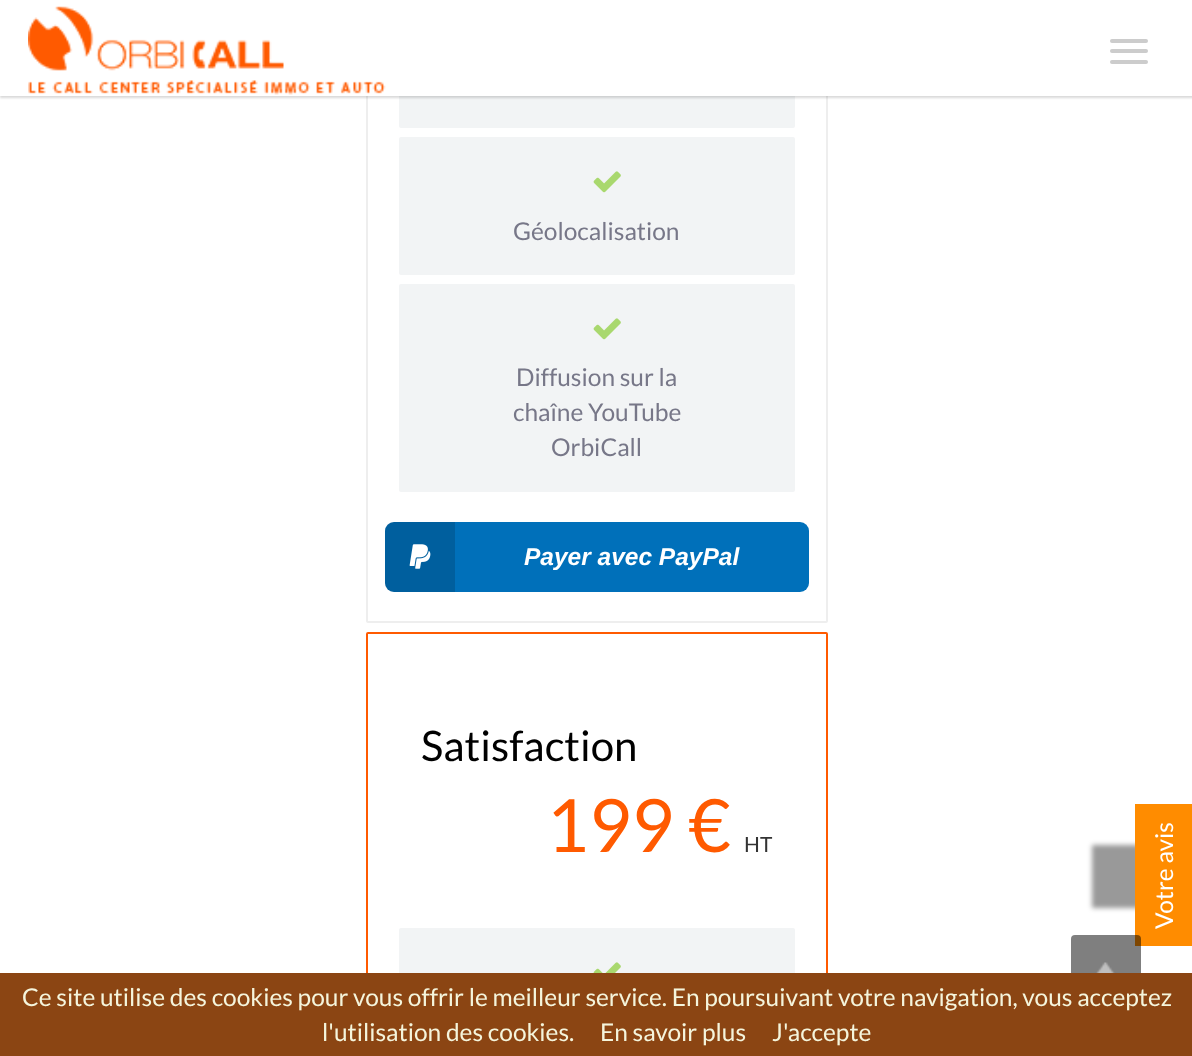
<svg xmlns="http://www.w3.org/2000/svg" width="1192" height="1056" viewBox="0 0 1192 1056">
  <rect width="100%" height="100%" fill="rgb(255,255,255)"/>
  <rect x="367" y="-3" width="460" height="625" rx="1" fill="none" stroke="rgb(238,238,238)" stroke-width="2"/>
  <rect x="399" y="-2" width="396" height="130" rx="2" fill="rgb(242,244,245)"/>
  <rect x="0" y="2" width="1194" height="96" fill="rgba(0,0,0,0.15)" filter="blur(1px)"/>
  <rect x="0" y="0" width="1192" height="96" fill="rgb(255,255,255)"/>
  <image x="28" y="6" width="358" height="89" href="pic1.png"/>
  <rect x="1110" y="39" width="38" height="4" rx="2" fill="rgb(204,204,204)"/>
  <rect x="1110" y="49" width="38" height="4" rx="2" fill="rgb(204,204,204)"/>
  <rect x="1110" y="60" width="38" height="4" rx="2" fill="rgb(204,204,204)"/>
  <rect x="399" y="137" width="396" height="138" rx="2" fill="rgb(242,244,245)"/>
  <image x="593" y="171" width="28" height="22" href="pic2.png"/>
  <text x="513" y="240" font-family="Lato" font-size="24.5" fill="rgb(119,119,136)">Géolocalisation</text>
  <rect x="399" y="284" width="396" height="208" rx="2" fill="rgb(242,244,245)"/>
  <image x="593" y="318" width="28" height="22" href="pic2.png"/>
  <g font-family="Lato" font-size="24.5" fill="rgb(119,119,136)">
    <text x="516" y="386">Diffusion sur la</text>
    <text x="513" y="421">chaîne YouTube</text>
    <text x="551" y="456">OrbiCall</text>
  </g>
  <rect x="385" y="522" width="424" height="70" rx="9" fill="rgb(0,112,186)"/>
  <path d="M394 522H455V592H394C389 592 385 588 385 583V531C385 526 389 522 394 522Z" fill="rgba(0,0,0,0.15)"/>
  <image x="409" y="544" width="22" height="25" href="pic3.png"/>
  <text x="524" y="565" font-family="Liberation Sans" font-size="24.5" font-weight="bold" font-style="italic" fill="rgb(255,255,255)">Payer avec PayPal</text>
  <rect x="367" y="633" width="460" height="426" rx="1" fill="none" stroke="rgb(255,90,0)" stroke-width="2"/>
  <text x="421" y="761" font-family="Lato" font-size="42" fill="rgb(0,0,0)">Satisfaction</text>
  <text x="546" y="852" font-family="Lato" font-size="73.5" fill="rgb(255,90,0)">199 €</text>
  <text x="744" y="852" font-family="Lato" font-size="21" fill="rgb(51,51,51)">HT</text>
  <rect x="399" y="928" width="396" height="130" rx="2" fill="rgb(242,244,245)"/>
  <image x="593" y="962" width="28" height="11" href="pic4.png"/>
  <rect x="1092" y="845" width="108" height="63" fill="rgba(0,0,0,0.4)" filter="blur(2.5px)"/>
  <rect x="1135" y="804" width="57" height="142" fill="rgb(255,140,0)"/>
  <text x="1173" y="929" transform="rotate(-90 1173 929)" font-family="Lato" font-size="24.5" fill="rgb(255,255,255)">Votre avis</text>
  <rect x="1071" y="935" width="70" height="70" rx="4" fill="rgba(0,0,0,0.5)"/>
  <image x="1096" y="962" width="19" height="11" href="pic5.png"/>
  <rect x="0" y="973" width="1192" height="83" fill="rgb(139,69,19)"/>
  <g font-family="Lato" font-size="24.5" fill="rgb(245,245,220)">
    <text x="22" y="1006">Ce site utilise des cookies pour vous offrir le meilleur service. En poursuivant votre navigation, vous acceptez</text>
    <text x="322" y="1041">l'utilisation des cookies.</text>
    <text x="600" y="1041">En savoir plus</text>
    <text x="772" y="1041">J'accepte</text>
  </g>
</svg>
